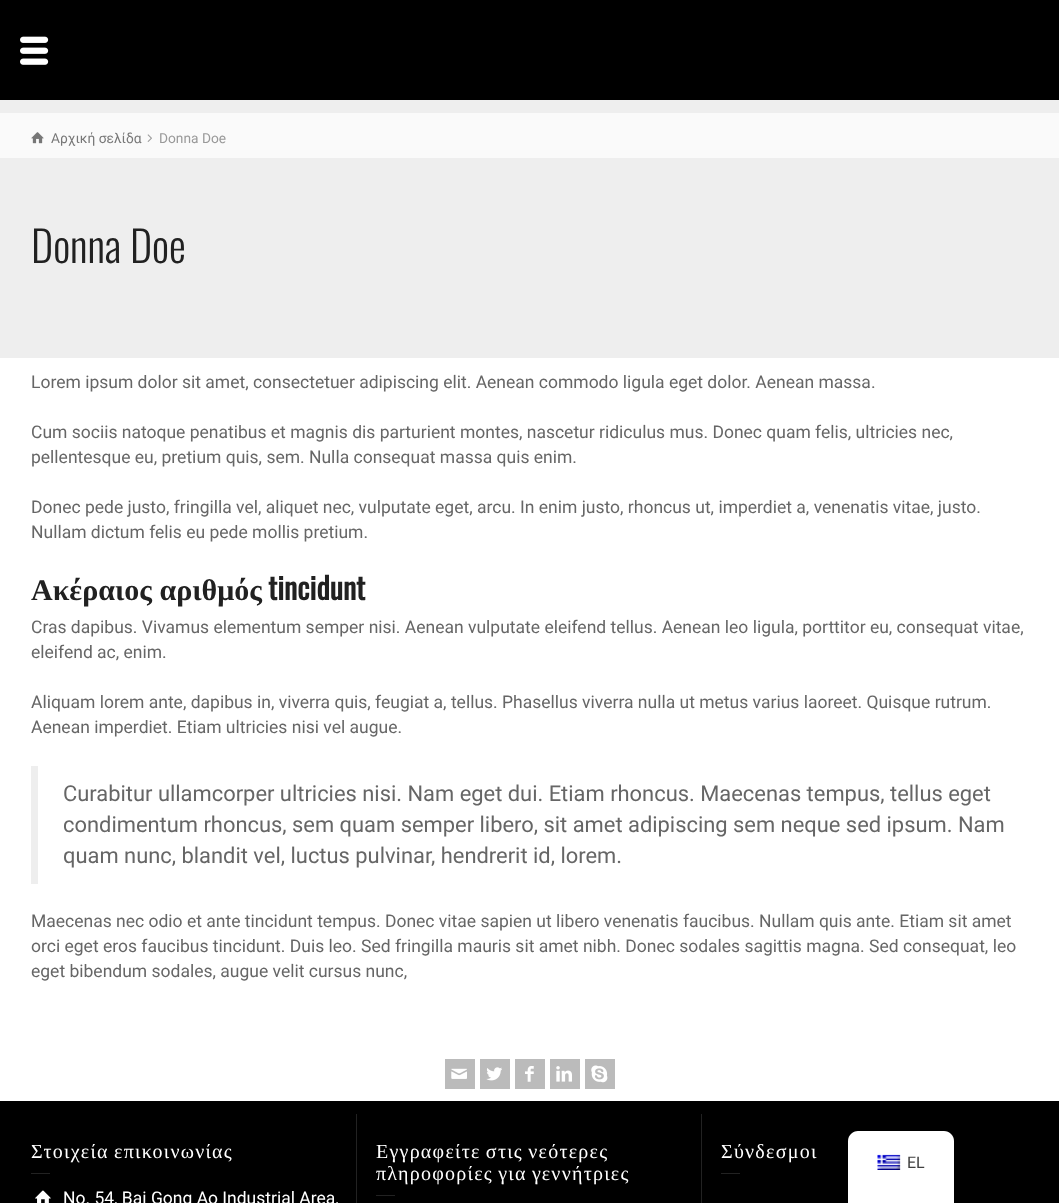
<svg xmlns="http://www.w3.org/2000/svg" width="1059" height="1203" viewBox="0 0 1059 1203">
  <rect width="100%" height="100%" fill="rgb(0,0,0)"/>
  <image x="20" y="36" width="29" height="29" href="pic1.png"/>
  <rect x="0" y="100" width="1059" height="258" fill="rgb(238,238,238)"/>
  <rect x="0" y="113" width="1059" height="45" fill="rgb(250,250,250)"/>
  <image x="31" y="132" width="13" height="12" href="pic2.png"/>
  <text x="51" y="143" font-family="Roboto" font-size="13.75" fill="rgb(119,119,119)">Αρχική σελίδα</text>
  <image x="147" y="134" width="5" height="8" href="pic3.png"/>
  <text x="159" y="143" font-family="Roboto" font-size="13.75" fill="rgb(153,153,153)">Donna Doe</text>
  <text x="31" y="263" font-family="Oswald" font-size="42.5" font-weight="300" fill="rgb(33,33,33)">Donna Doe</text>
  <rect x="0" y="358" width="1059" height="743" fill="rgb(255,255,255)"/>
  <g font-family="Roboto" font-size="17.5" fill="rgb(102,102,102)">
    <text x="31" y="388">Lorem ipsum dolor sit amet, consectetuer adipiscing elit. Aenean commodo ligula eget dolor. Aenean massa.</text>
    <text>
      <tspan x="31" y="438">Cum sociis natoque penatibus et magnis dis parturient montes, nascetur ridiculus mus. Donec quam felis, ultricies nec,</tspan>
      <tspan x="31" y="463">pellentesque eu, pretium quis, sem. Nulla consequat massa quis enim.</tspan>
    </text>
    <text>
      <tspan x="31" y="513">Donec pede justo, fringilla vel, aliquet nec, vulputate eget, arcu. In enim justo, rhoncus ut, imperdiet a, venenatis vitae, justo.</tspan>
      <tspan x="31" y="538">Nullam dictum felis eu pede mollis pretium.</tspan>
    </text>
  </g>
  <text x="31" y="600" font-family="Liberation Serif" font-size="30" font-weight="bold" fill="rgb(33,33,33)">Ακέραιος αριθμός</text>
  <text x="268" y="600" font-family="Oswald" font-size="30" font-weight="bold" fill="rgb(33,33,33)">tincidunt</text>
  <g font-family="Roboto" font-size="17.5" fill="rgb(102,102,102)">
    <text>
      <tspan x="31" y="633">Cras dapibus. Vivamus elementum semper nisi. Aenean vulputate eleifend tellus. Aenean leo ligula, porttitor eu, consequat vitae,</tspan>
      <tspan x="31" y="658">eleifend ac, enim.</tspan>
    </text>
    <text>
      <tspan x="31" y="708">Aliquam lorem ante, dapibus in, viverra quis, feugiat a, tellus. Phasellus viverra nulla ut metus varius laoreet. Quisque rutrum.</tspan>
      <tspan x="31" y="733">Aenean imperdiet. Etiam ultricies nisi vel augue.</tspan>
    </text>
  </g>
  <rect x="31" y="766" width="7" height="118" fill="rgb(238,238,238)"/>
  <g font-family="Roboto" font-size="21.9" fill="rgb(102,102,102)">
    <text>
      <tspan x="63" y="801">Curabitur ullamcorper ultricies nisi. Nam eget dui. Etiam rhoncus. Maecenas tempus, tellus eget</tspan>
      <tspan x="63" y="832">condimentum rhoncus, sem quam semper libero, sit amet adipiscing sem neque sed ipsum. Nam</tspan>
      <tspan x="63" y="863">quam nunc, blandit vel, luctus pulvinar, hendrerit id, lorem.</tspan>
    </text>
  </g>
  <g font-family="Roboto" font-size="17.5" fill="rgb(102,102,102)">
    <text>
      <tspan x="31" y="927">Maecenas nec odio et ante tincidunt tempus. Donec vitae sapien ut libero venenatis faucibus. Nullam quis ante. Etiam sit amet</tspan>
      <tspan x="31" y="952">orci eget eros faucibus tincidunt. Duis leo. Sed fringilla mauris sit amet nibh. Donec sodales sagittis magna. Sed consequat, leo</tspan>
      <tspan x="31" y="977">eget bibendum sodales, augue velit cursus nunc,</tspan>
    </text>
  </g>
  <rect x="445" y="1059" width="30" height="30" fill="rgb(187,187,187)"/>
  <image x="451" y="1068" width="16" height="11" href="pic4.png"/>
  <rect x="480" y="1059" width="30" height="30" fill="rgb(187,187,187)"/>
  <image x="486" y="1067" width="16" height="14" href="pic5.png"/>
  <rect x="515" y="1059" width="30" height="30" fill="rgb(187,187,187)"/>
  <image x="525" y="1066" width="9" height="16" href="pic6.png"/>
  <rect x="550" y="1059" width="30" height="30" fill="rgb(187,187,187)"/>
  <image x="556" y="1066" width="16" height="16" href="pic7.png"/>
  <rect x="585" y="1059" width="30" height="30" fill="rgb(187,187,187)"/>
  <image x="591" y="1065" width="17" height="18" href="pic8.png"/>
  <path d="M858 1131H944C949.5 1131 954 1135.5 954 1141V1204H848V1141C848 1135.5 852.5 1131 858 1131Z" fill="rgb(255,255,255)"/>
  <image x="877" y="1154" width="24" height="16" href="pic9.png"/>
  <text x="907" y="1168" font-family="Roboto" font-size="16" fill="rgb(64,64,64)">EL</text>
  <text x="31" y="1158" word-spacing="-1" font-family="Liberation Serif" font-size="20" letter-spacing="1.25" fill="rgb(255,255,255)">Στοιχεία επικοινωνίας</text>
  <rect x="31" y="1173" width="19" height="1" fill="rgb(34,34,34)"/>
  <image x="35" y="1190" width="16" height="13" href="pic10.png"/>
  <text x="63" y="1204" font-family="Roboto" font-size="17.5" fill="rgb(255,255,255)">No. 54, Bai Gong Ao Industrial Area,</text>
  <rect x="356" y="1114" width="1" height="89" fill="rgb(34,34,34)"/>
  <g font-family="Liberation Serif" font-size="20" letter-spacing="1.25" fill="rgb(255,255,255)">
    <text>
      <tspan x="376" y="1158" word-spacing="-1">Εγγραφείτε στις νεότερες</tspan>
      <tspan x="376" y="1180" word-spacing="-1">πληροφορίες για γεννήτριες</tspan>
    </text>
  </g>
  <rect x="376" y="1195" width="19" height="1" fill="rgb(34,34,34)"/>
  <rect x="701" y="1114" width="1" height="89" fill="rgb(34,34,34)"/>
  <text x="721" y="1158" font-family="Liberation Serif" font-size="20" letter-spacing="1.25" fill="rgb(255,255,255)">Σύνδεσμοι</text>
  <rect x="721" y="1173" width="19" height="1" fill="rgb(34,34,34)"/>
</svg>
